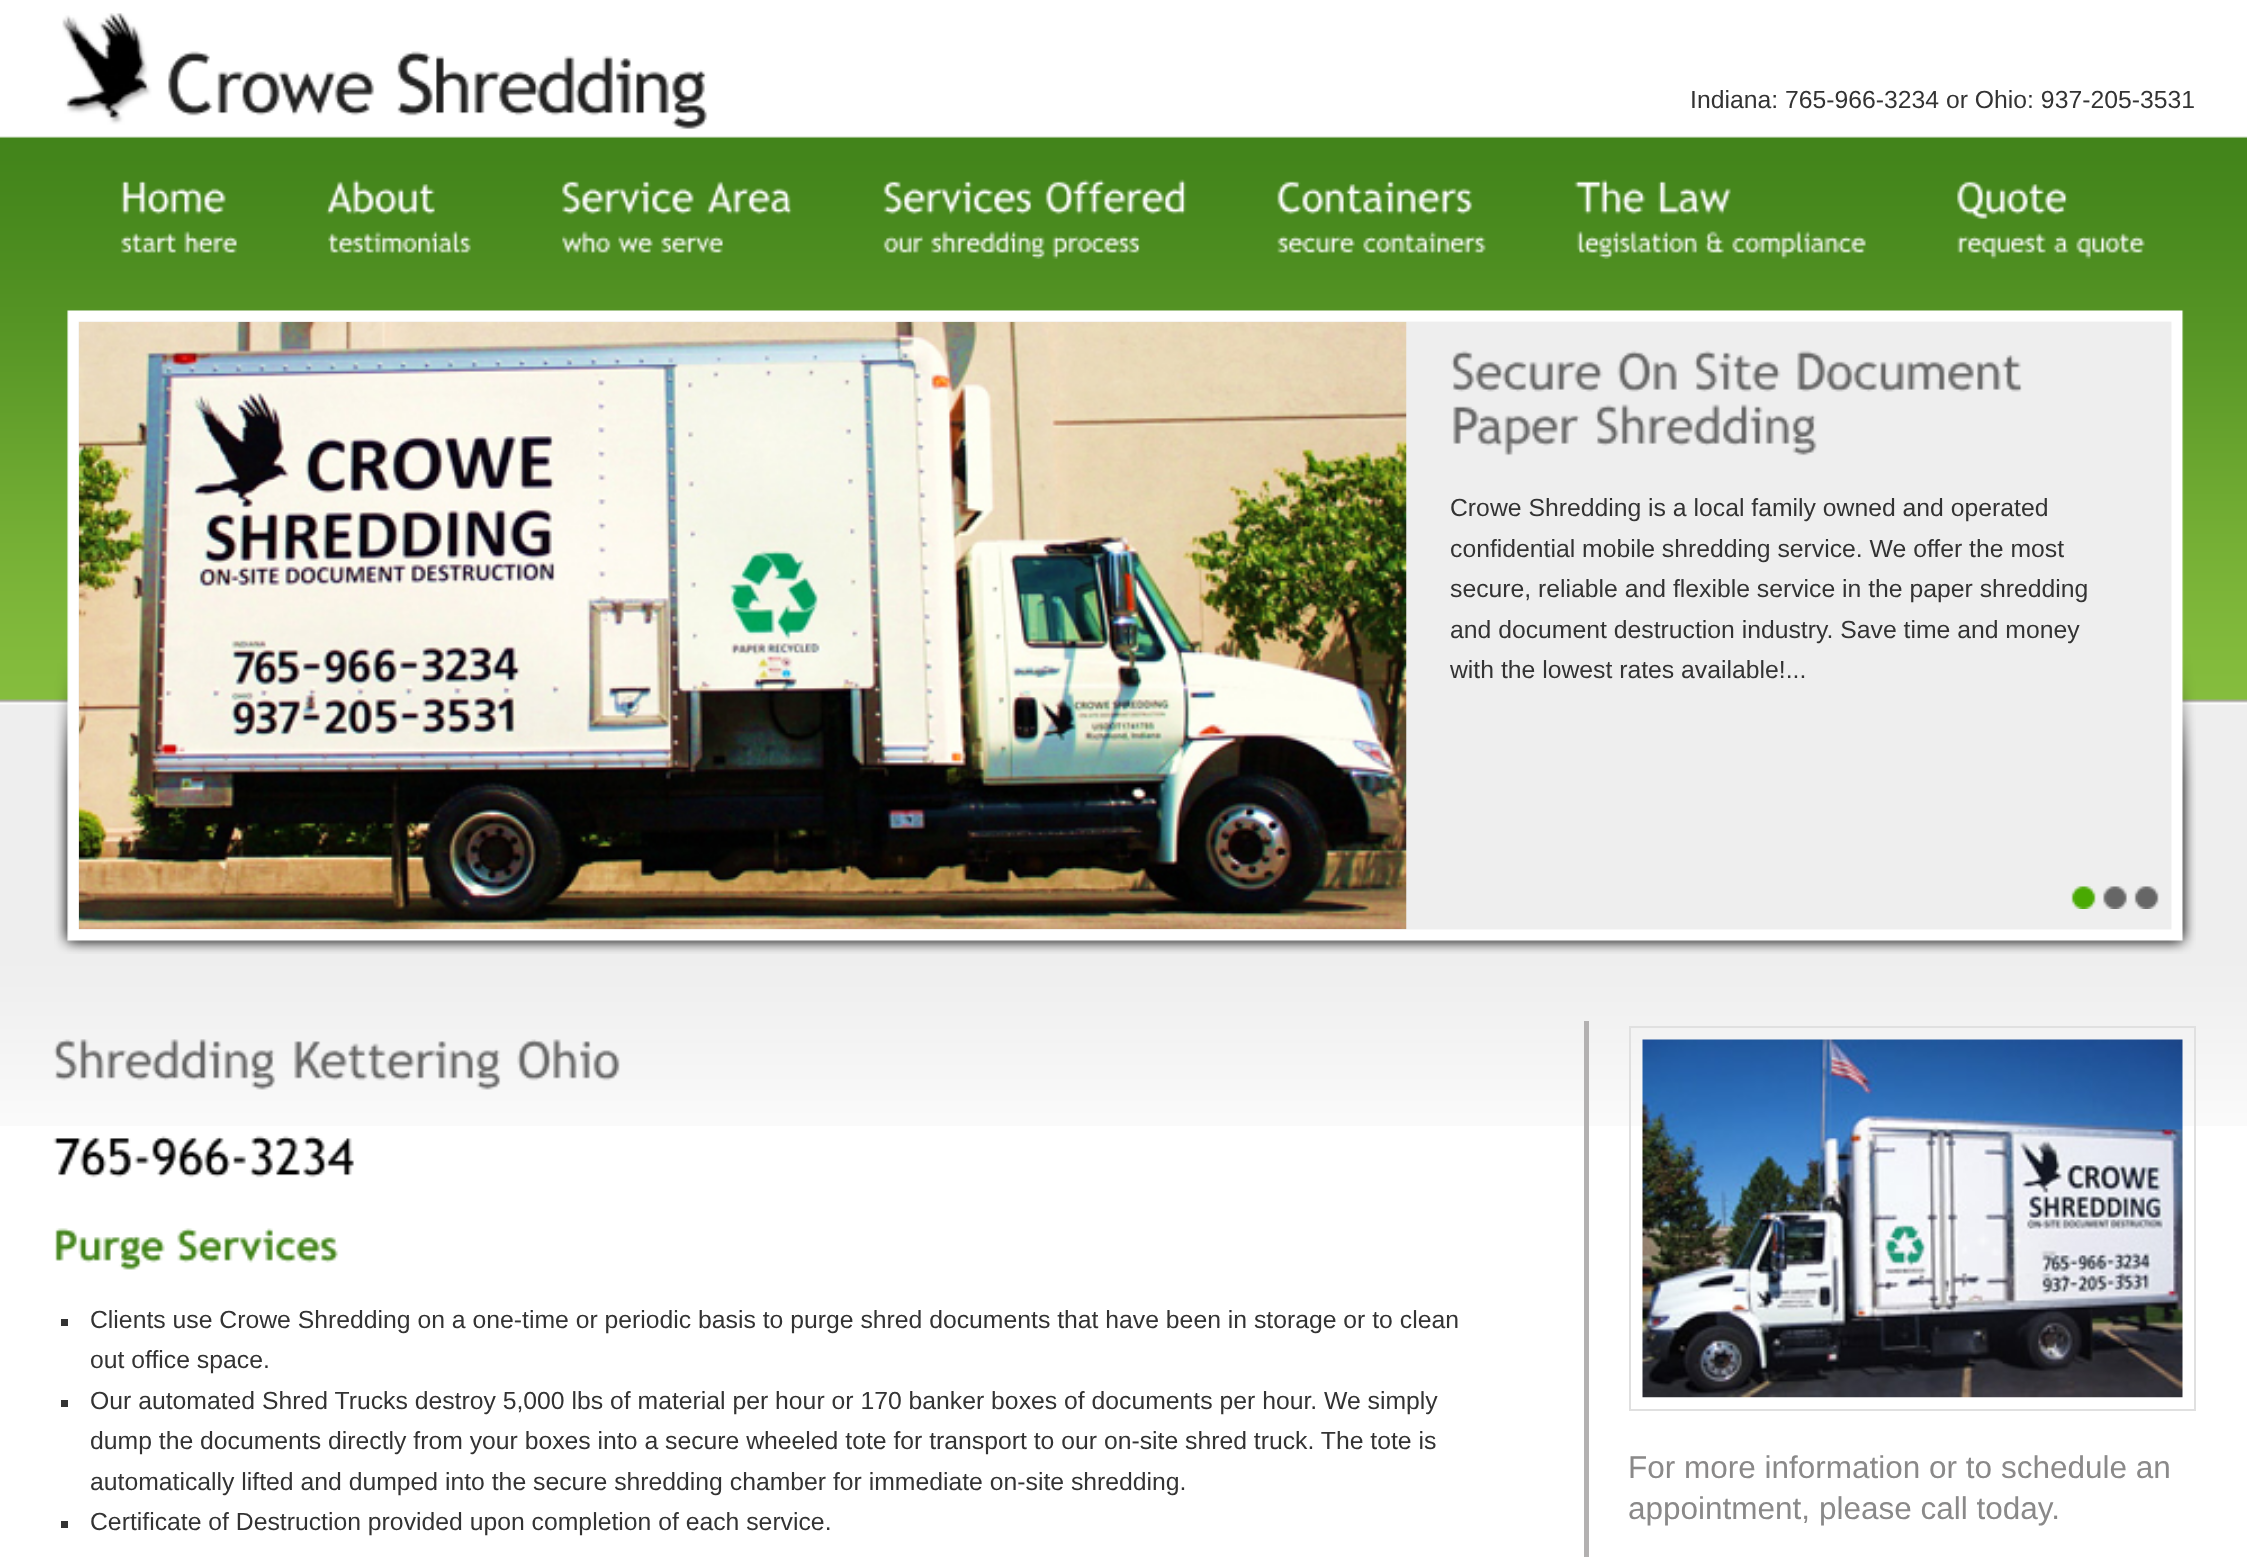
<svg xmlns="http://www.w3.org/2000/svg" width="2247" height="1557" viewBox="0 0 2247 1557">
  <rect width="100%" height="100%" fill="rgb(255,255,255)"/>
  <image x="0" y="136" width="2247" height="990" href="pic1.png"/>
  <image x="62" y="13" width="646" height="116" href="pic2.png"/>
  <text x="1690" y="108" font-family="Liberation Sans" font-size="24.75" fill="rgb(51,51,51)">Indiana: 765-966-3234 or Ohio: 937-205-3531</text>
  <image x="121" y="181" width="105" height="34" href="pic3.png"/>
  <image x="121" y="233" width="56" height="20" href="pic4.png"/>
  <image x="184" y="231" width="53" height="22" href="pic5.png"/>
  <image x="326" y="179" width="109" height="36" href="pic6.png"/>
  <image x="328" y="231" width="143" height="22" href="pic7.png"/>
  <image x="562" y="181" width="132" height="34" href="pic8.png"/>
  <image x="706" y="181" width="87" height="34" href="pic9.png"/>
  <image x="562" y="231" width="49" height="22" href="pic10.png"/>
  <image x="618" y="236" width="36" height="17" href="pic11.png"/>
  <image x="661" y="235" width="62" height="18" href="pic12.png"/>
  <image x="883" y="181" width="149" height="34" href="pic13.png"/>
  <image x="1045" y="179" width="142" height="36" href="pic14.png"/>
  <image x="883" y="235" width="41" height="18" href="pic15.png"/>
  <image x="931" y="231" width="114" height="28" href="pic16.png"/>
  <image x="1052" y="235" width="88" height="24" href="pic17.png"/>
  <image x="1277" y="181" width="196" height="34" href="pic18.png"/>
  <image x="1277" y="235" width="78" height="18" href="pic19.png"/>
  <image x="1363" y="231" width="123" height="22" href="pic20.png"/>
  <image x="1574" y="179" width="72" height="36" href="pic21.png"/>
  <image x="1658" y="181" width="73" height="34" href="pic22.png"/>
  <image x="1576" y="231" width="122" height="28" href="pic23.png"/>
  <image x="1705" y="231" width="20" height="22" href="pic24.png"/>
  <image x="1732" y="231" width="134" height="28" href="pic25.png"/>
  <image x="1957" y="181" width="111" height="38" href="pic26.png"/>
  <image x="1957" y="233" width="89" height="26" href="pic27.png"/>
  <image x="2053" y="235" width="16" height="18" href="pic28.png"/>
  <image x="2076" y="233" width="69" height="26" href="pic29.png"/>
  <image x="54" y="310" width="2142" height="644" href="pic30.png"/>
  <rect x="1406" y="322" width="765" height="607" fill="rgb(238,238,238)"/>
  <image x="78" y="321" width="1329" height="609" href="pic31.png"/>
  <image x="1451" y="350" width="152" height="42" href="pic32.png"/>
  <image x="1617" y="350" width="60" height="42" href="pic33.png"/>
  <image x="1694" y="350" width="87" height="42" href="pic34.png"/>
  <image x="1797" y="350" width="225" height="42" href="pic35.png"/>
  <image x="1453" y="406" width="127" height="50" href="pic36.png"/>
  <image x="1595" y="404" width="222" height="52" href="pic37.png"/>
  <g font-family="Liberation Sans" font-size="24.75" fill="rgb(51,51,51)">
    <text>
      <tspan x="1450" y="516">Crowe Shredding is a local family owned and operated</tspan>
      <tspan x="1450" y="557">confidential mobile shredding service. We offer the most</tspan>
      <tspan x="1450" y="597">secure, reliable and flexible service in the paper shredding</tspan>
      <tspan x="1450" y="638">and document destruction industry. Save time and money</tspan>
      <tspan x="1450" y="678">with the lowest rates available!...</tspan>
    </text>
  </g>
  <image x="2071" y="886" width="25" height="23" href="pic38.png"/>
  <image x="2103" y="886" width="24" height="23" href="pic39.png"/>
  <image x="2134" y="886" width="25" height="23" href="pic40.png"/>
  <image x="53" y="1039" width="223" height="51" href="pic41.png"/>
  <image x="294" y="1041" width="207" height="49" href="pic42.png"/>
  <image x="517" y="1039" width="103" height="42" href="pic43.png"/>
  <image x="53" y="1135" width="301" height="43" href="pic44.png"/>
  <image x="55" y="1228" width="110" height="42" href="pic45.png"/>
  <image x="177" y="1228" width="162" height="35" href="pic46.png"/>
  <rect x="61" y="1319" width="7" height="7" fill="rgb(51,51,51)"/>
  <g font-family="Liberation Sans" font-size="24.75" fill="rgb(51,51,51)">
    <text>
      <tspan x="90" y="1328">Clients use Crowe Shredding on a one-time or periodic basis to purge shred documents that have been in storage or to clean</tspan>
      <tspan x="90" y="1368">out office space.</tspan>
    </text>
  </g>
  <rect x="61" y="1400" width="7" height="7" fill="rgb(51,51,51)"/>
  <g font-family="Liberation Sans" font-size="24.75" fill="rgb(51,51,51)">
    <text>
      <tspan x="90" y="1409">Our automated Shred Trucks destroy 5,000 lbs of material per hour or 170 banker boxes of documents per hour. We simply</tspan>
      <tspan x="90" y="1449">dump the documents directly from your boxes into a secure wheeled tote for transport to our on-site shred truck. The tote is</tspan>
      <tspan x="90" y="1490">automatically lifted and dumped into the secure shredding chamber for immediate on-site shredding.</tspan>
    </text>
  </g>
  <rect x="61" y="1521" width="7" height="7" fill="rgb(51,51,51)"/>
  <text x="90" y="1530" font-family="Liberation Sans" font-size="24.75" fill="rgb(51,51,51)">Certificate of Destruction provided upon completion of each service.</text>
  <rect x="1584" y="1021" width="5" height="536" fill="rgb(179,177,177)"/>
  <rect x="1630" y="1027" width="565" height="383" fill="none" stroke="rgb(224,224,224)" stroke-width="2"/>
  <image x="1642" y="1039" width="541" height="359" href="pic47.png"/>
  <g font-family="Liberation Sans" font-size="31.5" fill="rgb(138,137,137)">
    <text>
      <tspan x="1628" y="1478">For more information or to schedule an</tspan>
      <tspan x="1628" y="1519">appointment, please call today.</tspan>
    </text>
  </g>
</svg>
